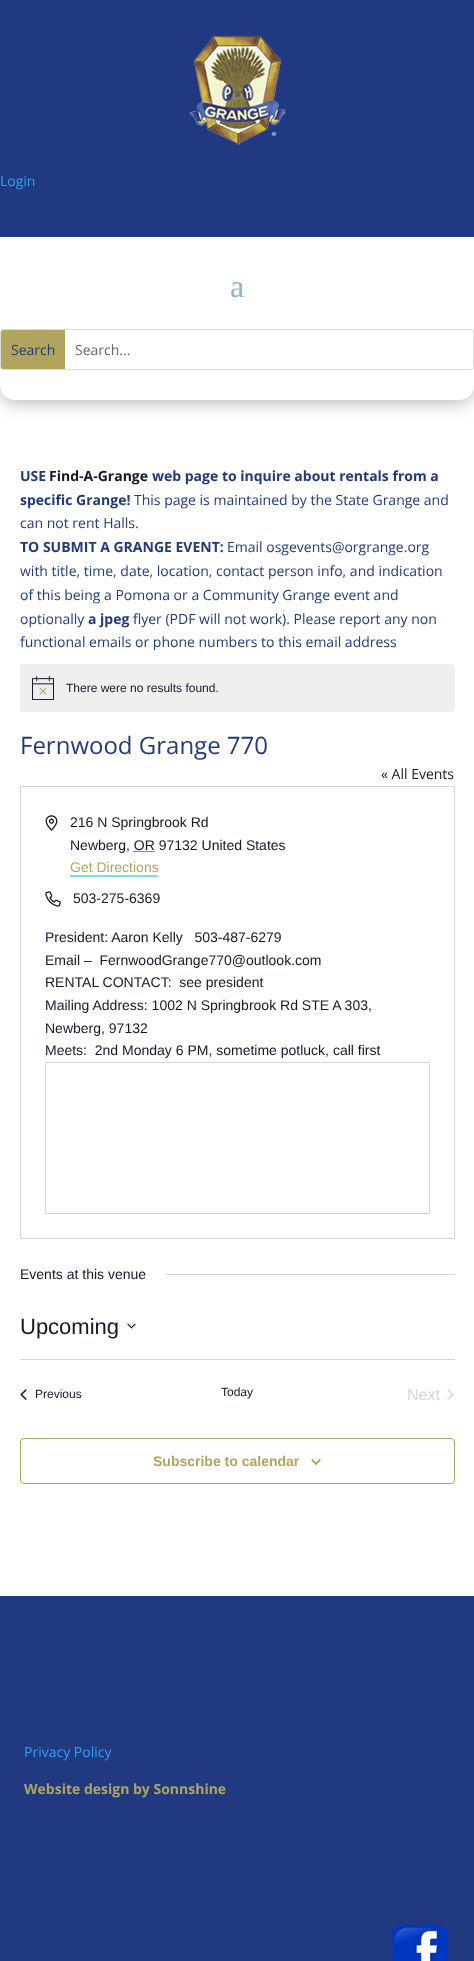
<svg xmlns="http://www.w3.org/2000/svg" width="474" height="1961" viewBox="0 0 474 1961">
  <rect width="100%" height="100%" fill="rgb(255,255,255)"/>
  <rect x="0" y="2" width="474" height="400" rx="15" fill="rgba(0,0,0,0.3)" filter="blur(9px)"/>
  <path d="M0 0H474V385C474 393.5 467.5 400 459 400H15C6.5 400 0 393.5 0 385Z" fill="rgb(255,255,255)"/>
  <rect x="0" y="0" width="474" height="237" fill="rgb(33,57,128)"/>
  <image x="189" y="35" width="97" height="110" href="pic1.png"/>
  <text x="0" y="186" font-family="Open Sans" font-size="14" fill="rgb(46,163,242)">Login</text>
  <text x="230" y="297" font-family="Liberation Serif" font-size="32" fill="rgb(126,190,197)">a</text>
  <rect x="0.5" y="329.5" width="473" height="40" rx="2.5" fill="none" stroke="rgb(221,221,221)"/>
  <path d="M3 330H65V369H3C2 369 1 368 1 367V332C1 331 2 330 3 330Z" fill="rgb(177,165,93)"/>
  <text x="11" y="355" font-family="Open Sans" font-size="14" fill="rgb(33,57,128)">Search</text>
  <text x="75" y="355" font-family="Open Sans" font-size="14" fill="rgb(102,102,102)">Search...</text>
  <text x="20" y="481" font-family="Open Sans" font-size="14" font-weight="bold" fill="rgb(33,57,128)">USE</text>
  <text x="49" y="481" font-family="Open Sans" font-size="14" font-weight="bold" fill="rgb(20,24,39)">Find-A-Grange</text>
  <g font-family="Open Sans" font-size="14" font-weight="bold" fill="rgb(33,57,128)">
    <text x="152" y="481">web page to inquire about rentals from a</text>
    <text x="20" y="505">specific Grange!</text>
  </g>
  <g font-family="Open Sans" font-size="14" fill="rgb(33,57,128)">
    <text x="134" y="505">This page is maintained by the State Grange and</text>
    <text x="20" y="528">can not rent Halls.</text>
  </g>
  <text x="20" y="552" font-family="Open Sans" font-size="14" font-weight="bold" fill="rgb(33,57,128)">TO SUBMIT A GRANGE EVENT:</text>
  <g font-family="Open Sans" font-size="14" fill="rgb(33,57,128)">
    <text x="227" y="552">Email osgevents@orgrange.org</text>
    <text>
      <tspan x="20" y="576">with title, time, date, location, contact person info, and indication</tspan>
      <tspan x="20" y="600">of this being a Pomona or a Community Grange event and</tspan>
      <tspan x="20" y="624">optionally</tspan>
    </text>
  </g>
  <text x="88" y="624" font-family="Open Sans" font-size="14" font-weight="bold" fill="rgb(33,57,128)">a jpeg</text>
  <g font-family="Open Sans" font-size="14" fill="rgb(33,57,128)">
    <text x="133" y="624">flyer (PDF will not work). Please report any non</text>
    <text x="20" y="647">functional emails or phone numbers to this email address</text>
  </g>
  <rect x="20" y="664" width="435" height="48" rx="4" fill="rgb(239,239,240)"/>
  <image x="32" y="676" width="22" height="24" href="pic2.png"/>
  <text x="66" y="692" font-family="Liberation Sans" font-size="12" fill="rgb(20,24,39)">There were no results found.</text>
  <text x="20" y="754" font-family="Open Sans" font-size="24" fill="rgb(33,57,128)">Fernwood Grange 770</text>
  <text x="381" y="779" font-family="Open Sans" font-size="14" fill="rgb(20,24,39)">« All Events</text>
  <rect x="20.5" y="786.5" width="434" height="452" fill="none" stroke="rgb(213,213,213)"/>
  <image x="45" y="815" width="13" height="16" href="pic3.png"/>
  <g font-family="Liberation Sans" font-size="14" fill="rgb(20,24,39)">
    <text>
      <tspan x="70" y="827">216 N Springbrook Rd</tspan>
      <tspan x="70" y="850">Newberg, OR 97132 United States</tspan>
    </text>
  </g>
  <path d="M133.5 851.5H154.5" fill="none" stroke="rgb(20,24,39)" stroke-dasharray="1 1"/>
  <text x="70" y="872" font-family="Liberation Sans" font-size="14" fill="rgb(177,165,93)">Get Directions</text>
  <rect x="70" y="875" width="88" height="2" fill="rgb(117,226,234)"/>
  <image x="45" y="891" width="16" height="16" href="pic4.png"/>
  <g font-family="Liberation Sans" font-size="14" fill="rgb(20,24,39)">
    <text x="73" y="903">503-275-6369</text>
    <text xml:space="preserve"><tspan x="45" y="942">President: Aaron Kelly   503-487-6279</tspan><tspan x="45" y="965">Email –  FernwoodGrange770@outlook.com</tspan><tspan x="45" y="987">RENTAL CONTACT:  see president</tspan><tspan x="45" y="1010">Mailing Address: 1002 N Springbrook Rd STE A 303,</tspan><tspan x="45" y="1033">Newberg, 97132</tspan><tspan x="45" y="1055">Meets:  2nd Monday 6 PM, sometime potluck, call first</tspan></text>
  </g>
  <rect x="45.5" y="1062.5" width="384" height="151" fill="none" stroke="rgb(213,213,213)"/>
  <text x="20" y="1279" font-family="Liberation Sans" font-size="14" fill="rgb(20,24,39)">Events at this venue</text>
  <rect x="166" y="1274" width="289" height="1" fill="rgb(213,213,213)"/>
  <text x="20" y="1334" font-family="Liberation Sans" font-size="22" fill="rgb(20,24,39)">Upcoming</text>
  <image x="127" y="1323" width="9" height="6" href="pic5.png"/>
  <rect x="20" y="1359" width="435" height="1" fill="rgb(213,213,213)"/>
  <image x="20" y="1389" width="7" height="11" href="pic6.png"/>
  <g font-family="Liberation Sans" font-size="12" fill="rgb(20,24,39)">
    <text x="35" y="1398">Previous</text>
    <text x="221" y="1396">Today</text>
  </g>
  <text x="407" y="1400" font-family="Liberation Sans" font-size="16" fill="rgb(213,213,213)">Next</text>
  <image x="447" y="1389" width="7" height="11" href="pic7.png"/>
  <rect x="20.5" y="1438.5" width="434" height="45" rx="3.5" fill="none" stroke="rgb(177,165,93)"/>
  <text x="153" y="1466" font-family="Liberation Sans" font-size="14" font-weight="bold" fill="rgb(177,165,93)">Subscribe to calendar</text>
  <image x="311" y="1459" width="10" height="6" href="pic8.png"/>
  <rect x="0" y="1596" width="474" height="365" fill="rgb(33,57,128)"/>
  <text x="24" y="1757" font-family="Open Sans" font-size="14" fill="rgb(46,163,242)">Privacy Policy</text>
  <text x="24" y="1794" font-family="Open Sans" font-size="14" font-weight="bold" fill="rgb(177,165,93)">Website design by Sonnshine</text>
  <image x="392" y="1925" width="56" height="36" href="pic9.png"/>
</svg>
